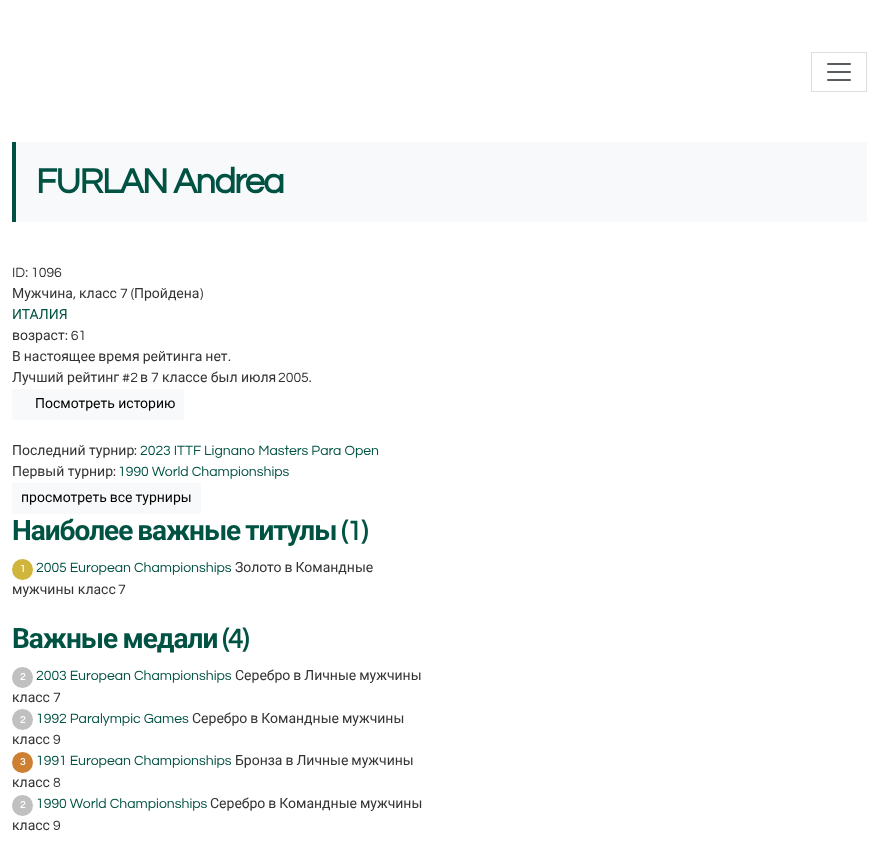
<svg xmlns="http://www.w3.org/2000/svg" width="879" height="862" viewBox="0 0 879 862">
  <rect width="100%" height="100%" fill="rgb(255,255,255)"/>
  <rect x="811.5" y="52.5" width="55" height="39" fill="none" stroke="rgb(221,221,221)"/>
  <image x="827" y="63" width="24" height="18" href="pic1.png"/>
  <rect x="16" y="142" width="851" height="80" fill="rgb(248,249,250)"/>
  <rect x="12" y="142" width="4" height="80" fill="rgb(0,80,67)"/>
  <text x="36" y="193" font-family="Questrial" font-size="36" font-weight="bold" letter-spacing="-1.5" fill="rgb(0,82,67)">FURLAN Andrea</text>
  <text x="12" y="277" font-family="Questrial" font-size="14" fill="rgb(51,51,51)">ID: 1096</text>
  <text x="12" y="298" font-family="Roboto" font-size="14" fill="rgb(51,51,51)">Мужчина</text>
  <text x="73" y="298" font-family="Questrial" font-size="14" fill="rgb(51,51,51)">,</text>
  <text x="79" y="298" font-family="Roboto" font-size="14" fill="rgb(51,51,51)">класс</text>
  <text x="120" y="298" font-family="Questrial" font-size="14" fill="rgb(51,51,51)">7 (</text>
  <text x="134" y="298" font-family="Roboto" font-size="14" fill="rgb(51,51,51)">Пройдена</text>
  <text x="200" y="298" font-family="Questrial" font-size="14" fill="rgb(51,51,51)">)</text>
  <text x="12" y="319" font-family="Roboto" font-size="14" fill="rgb(0,82,67)">ИТАЛИЯ</text>
  <text x="12" y="340" font-family="Roboto" font-size="14" fill="rgb(51,51,51)">возраст</text>
  <text x="65" y="340" font-family="Questrial" font-size="14" fill="rgb(51,51,51)">: 61</text>
  <text x="12" y="361" word-spacing="-0.5" font-family="Roboto" font-size="14" fill="rgb(51,51,51)">В настоящее время рейтинга нет</text>
  <text x="228" y="361" font-family="Questrial" font-size="14" fill="rgb(51,51,51)">.</text>
  <text x="12" y="382" font-family="Roboto" font-size="14" fill="rgb(51,51,51)">Лучший рейтинг</text>
  <text x="122" y="382" font-family="Questrial" font-size="14" fill="rgb(51,51,51)">#2</text>
  <text x="140" y="382" font-family="Roboto" font-size="14" fill="rgb(51,51,51)">в</text>
  <text x="151" y="382" font-family="Questrial" font-size="14" fill="rgb(51,51,51)">7</text>
  <text x="162" y="382" font-family="Roboto" font-size="14" fill="rgb(51,51,51)">классе был июля</text>
  <text x="278" y="382" font-family="Questrial" font-size="14" fill="rgb(51,51,51)">2005.</text>
  <rect x="12" y="389" width="172" height="31" fill="rgb(248,249,250)"/>
  <text x="35" y="408" font-family="Roboto" font-size="14" fill="rgb(0,0,0)">Посмотреть историю</text>
  <text x="12" y="455" font-family="Roboto" font-size="14" fill="rgb(51,51,51)">Последний турнир</text>
  <text x="134" y="455" font-family="Questrial" font-size="14" fill="rgb(51,51,51)">:</text>
  <text x="140" y="455" font-family="Questrial" font-size="14" fill="rgb(0,82,67)">2023 ITTF Lignano Masters Para Open</text>
  <text x="12" y="476" font-family="Roboto" font-size="14" fill="rgb(51,51,51)">Первый турнир</text>
  <text x="113" y="476" font-family="Questrial" font-size="14" fill="rgb(51,51,51)">:</text>
  <text x="118" y="476" font-family="Questrial" font-size="14" fill="rgb(0,82,67)">1990 World Championships</text>
  <rect x="12" y="483" width="189" height="31" fill="rgb(248,249,250)"/>
  <text x="21" y="502" word-spacing="-0.5" font-family="Roboto" font-size="14" fill="rgb(0,0,0)">просмотреть все турниры</text>
  <text x="12" y="540" word-spacing="-1" font-family="Roboto" font-size="28" font-weight="bold" letter-spacing="-1" fill="rgb(0,82,67)">Наиболее важные титулы</text>
  <text x="341" y="540" font-family="Questrial" font-size="28" font-weight="bold" letter-spacing="-1" fill="rgb(0,82,67)">(1)</text>
  <circle cx="22.5" cy="569.5" r="10.5" fill="rgb(207,181,59)"/>
  <text x="20" y="572" font-family="Questrial" font-size="10" font-weight="bold" fill="rgb(255,255,255)">1</text>
  <text x="36" y="572" font-family="Questrial" font-size="14" fill="rgb(0,82,67)">2005 European Championships</text>
  <g font-family="Roboto" font-size="14" fill="rgb(51,51,51)">
    <text x="235" y="572" word-spacing="-0.5">Золото в Командные</text>
    <text x="12" y="594">мужчины класс</text>
  </g>
  <text x="118" y="594" font-family="Questrial" font-size="14" fill="rgb(51,51,51)">7</text>
  <text x="12" y="648" word-spacing="-0.5" font-family="Roboto" font-size="28" font-weight="bold" letter-spacing="-1" fill="rgb(0,82,67)">Важные медали</text>
  <text x="222" y="648" font-family="Questrial" font-size="28" font-weight="bold" letter-spacing="-1" fill="rgb(0,82,67)">(4)</text>
  <circle cx="22.5" cy="677.5" r="10.5" fill="rgb(192,192,192)"/>
  <text x="20" y="680" font-family="Questrial" font-size="10" font-weight="bold" fill="rgb(255,255,255)">2</text>
  <text x="36" y="680" font-family="Questrial" font-size="14" fill="rgb(0,82,67)">2003 European Championships</text>
  <g font-family="Roboto" font-size="14" fill="rgb(51,51,51)">
    <text x="235" y="680" word-spacing="-0.5">Серебро в Личные мужчины</text>
    <text x="12" y="702">класс</text>
  </g>
  <text x="53" y="702" font-family="Questrial" font-size="14" fill="rgb(51,51,51)">7</text>
  <circle cx="22.5" cy="719.5" r="10.5" fill="rgb(192,192,192)"/>
  <text x="20" y="723" font-family="Questrial" font-size="10" font-weight="bold" fill="rgb(255,255,255)">2</text>
  <text x="36" y="723" font-family="Questrial" font-size="14" fill="rgb(0,82,67)">1992 Paralympic Games</text>
  <g font-family="Roboto" font-size="14" fill="rgb(51,51,51)">
    <text x="192" y="723" word-spacing="-0.5">Серебро в Командные мужчины</text>
    <text x="12" y="744">класс</text>
  </g>
  <text x="53" y="744" font-family="Questrial" font-size="14" fill="rgb(51,51,51)">9</text>
  <circle cx="22.5" cy="762.5" r="10.5" fill="rgb(205,127,50)"/>
  <text x="20" y="765" font-family="Questrial" font-size="10" font-weight="bold" fill="rgb(255,255,255)">3</text>
  <text x="36" y="765" font-family="Questrial" font-size="14" fill="rgb(0,82,67)">1991 European Championships</text>
  <g font-family="Roboto" font-size="14" fill="rgb(51,51,51)">
    <text x="235" y="765" word-spacing="-0.5">Бронза в Личные мужчины</text>
    <text x="12" y="787">класс</text>
  </g>
  <text x="53" y="787" font-family="Questrial" font-size="14" fill="rgb(51,51,51)">8</text>
  <circle cx="22.5" cy="805.5" r="10.5" fill="rgb(192,192,192)"/>
  <text x="20" y="808" font-family="Questrial" font-size="10" font-weight="bold" fill="rgb(255,255,255)">2</text>
  <text x="36" y="808" font-family="Questrial" font-size="14" fill="rgb(0,82,67)">1990 World Championships</text>
  <g font-family="Roboto" font-size="14" fill="rgb(51,51,51)">
    <text x="210" y="808" word-spacing="-0.5">Серебро в Командные мужчины</text>
    <text x="12" y="830">класс</text>
  </g>
  <text x="53" y="830" font-family="Questrial" font-size="14" fill="rgb(51,51,51)">9</text>
</svg>
